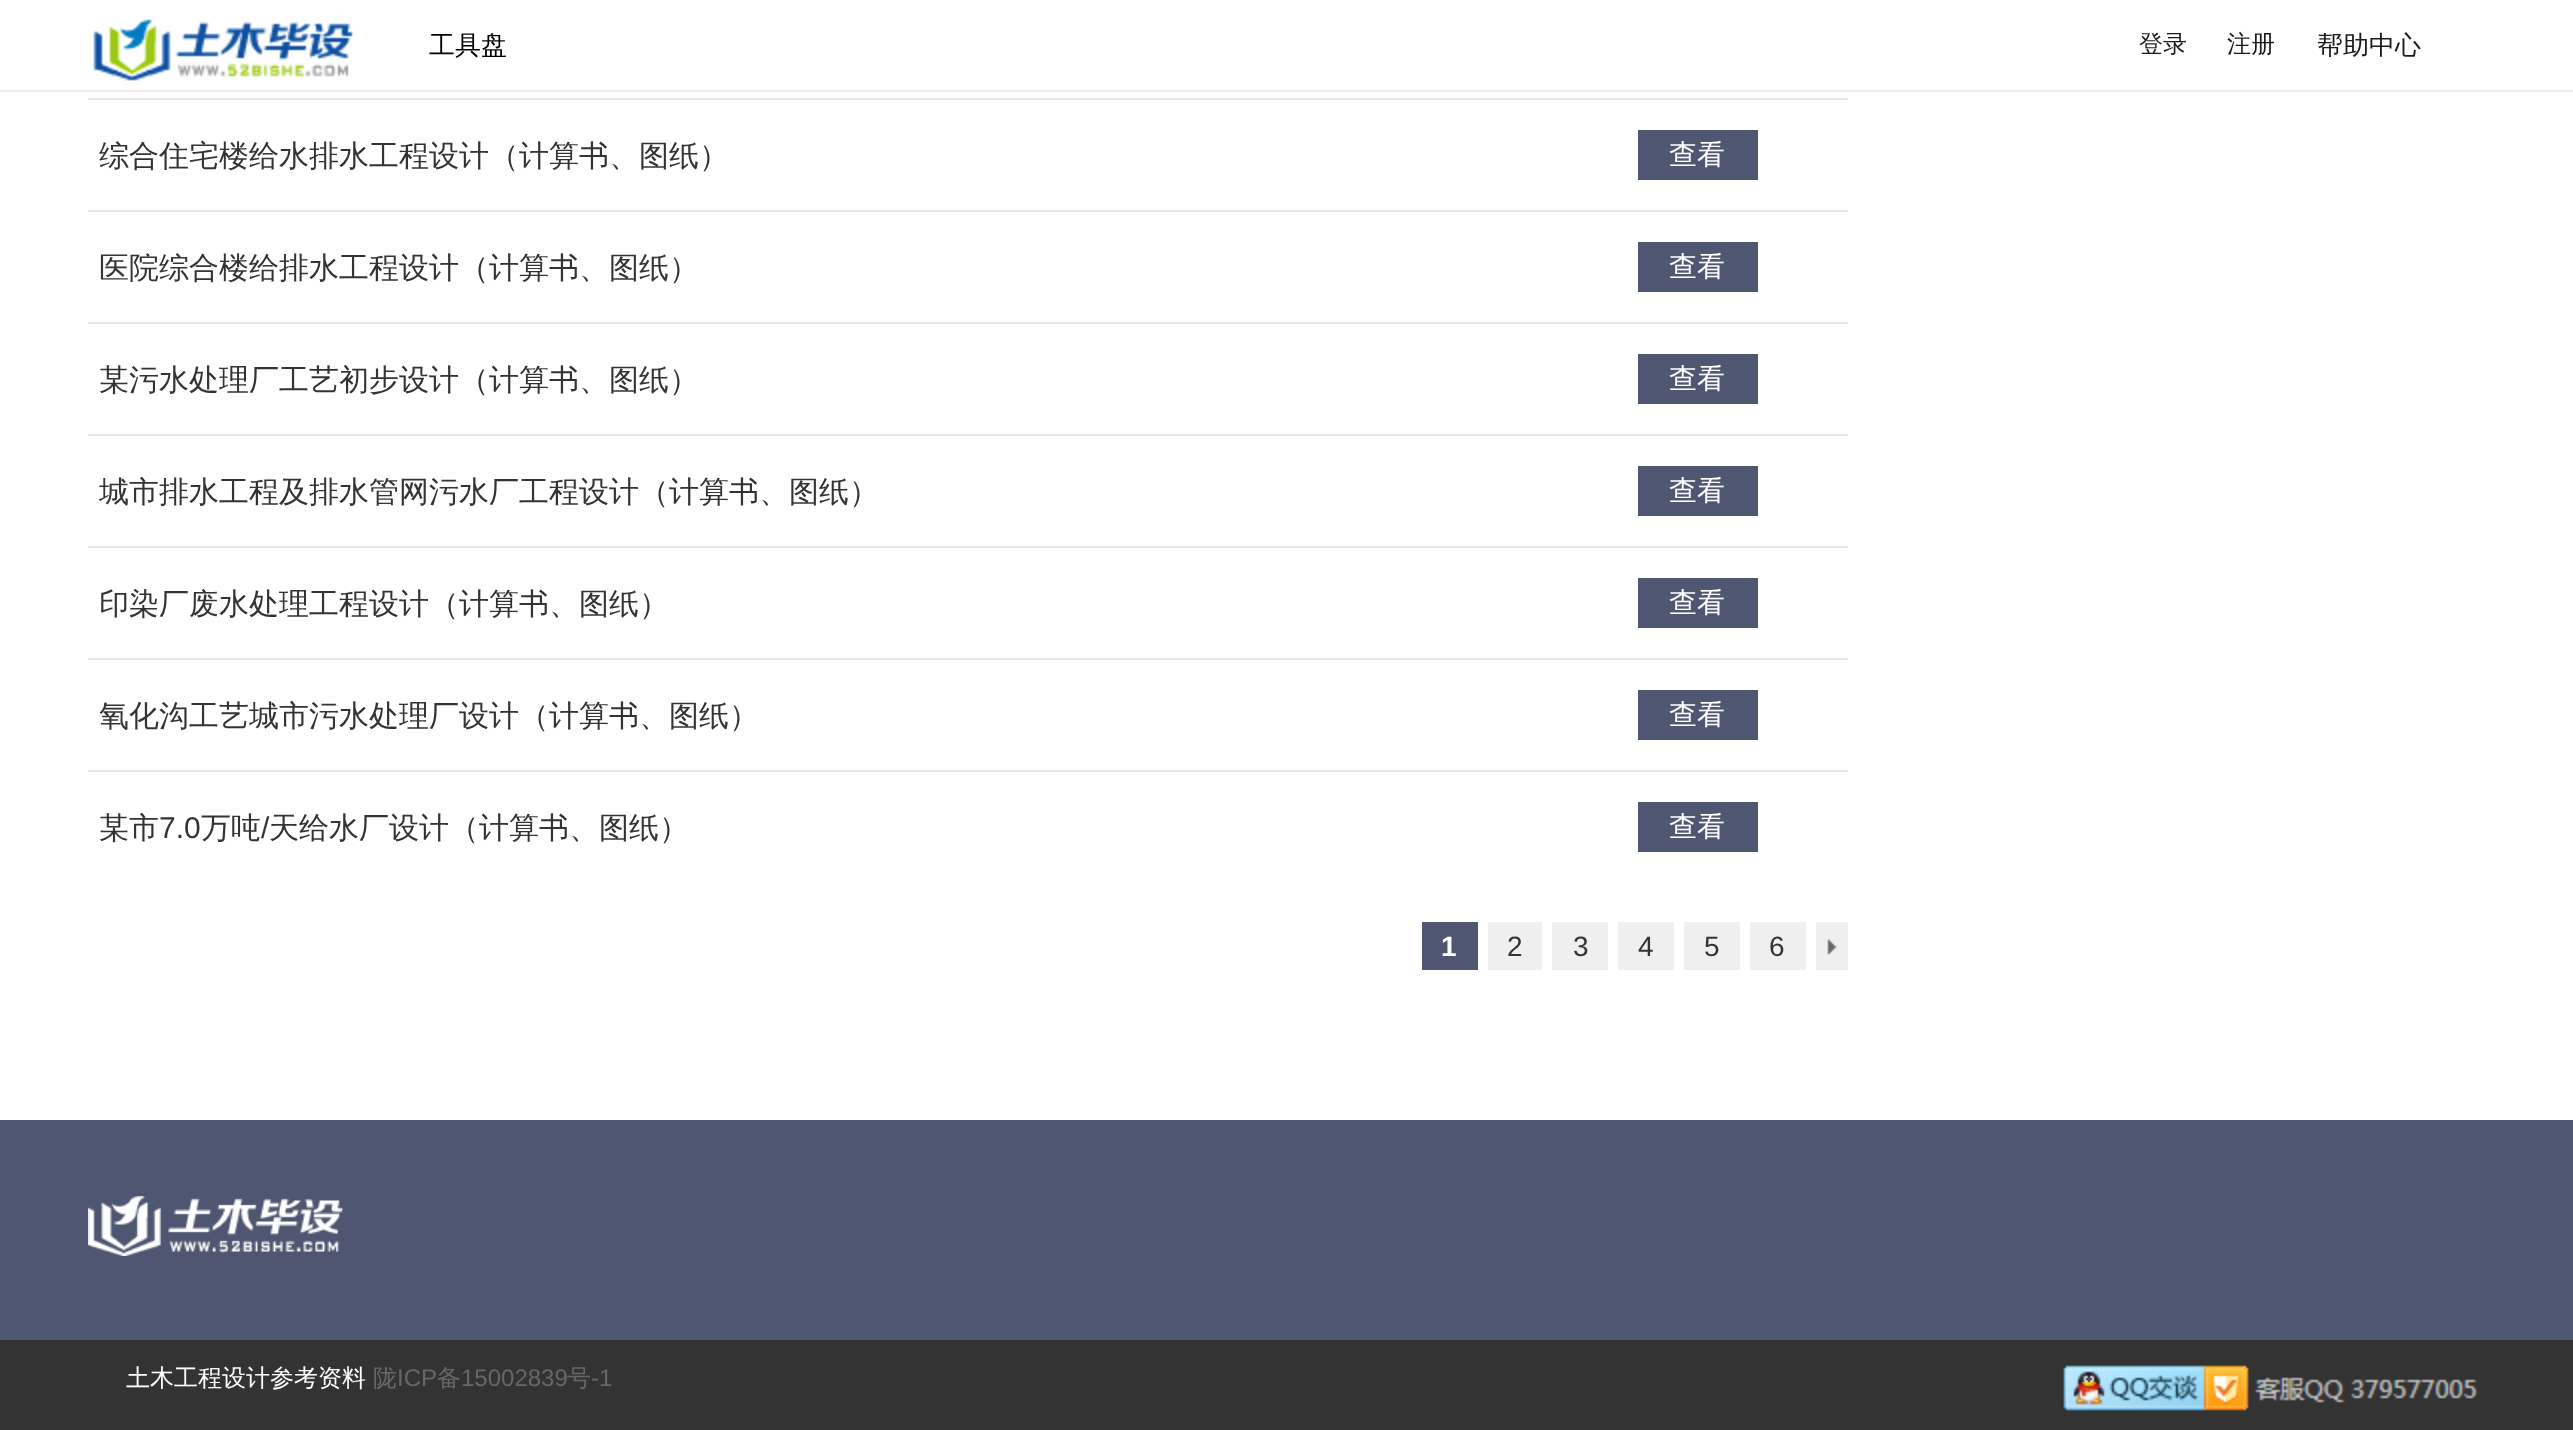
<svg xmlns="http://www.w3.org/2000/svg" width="2573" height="1430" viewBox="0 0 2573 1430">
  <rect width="100%" height="100%" fill="rgb(255,255,255)"/>
  <rect x="0" y="90" width="2573" height="2" fill="rgb(236,236,236)"/>
  <image x="93" y="19" width="261" height="62" href="pic1.png"/>
  <text x="429" y="54" font-family="WenQuanYi Zen Hei" font-size="26" font-weight="500" fill="rgb(0,0,0)">工具盘</text>
  <g font-family="WenQuanYi Zen Hei" font-size="24" font-weight="500" fill="rgb(26,26,26)">
    <text x="2139" y="52">登录</text>
    <text x="2227" y="52">注册</text>
  </g>
  <text x="2317" y="54" font-family="WenQuanYi Zen Hei" font-size="26" font-weight="500" fill="rgb(26,26,26)">帮助中心</text>
  <rect x="88" y="98" width="1760" height="2" fill="rgb(227,232,238)"/>
  <text x="99" y="166" font-family="WenQuanYi Zen Hei" font-size="30" font-weight="500" fill="rgb(51,51,51)">综合住宅楼给水排水工程设计（计算书、图纸）</text>
  <rect x="1638" y="130" width="120" height="50" fill="rgb(79,86,113)"/>
  <text x="1669" y="164" font-family="WenQuanYi Zen Hei" font-size="28" font-weight="500" fill="rgb(255,255,255)">查看</text>
  <rect x="88" y="210" width="1760" height="2" fill="rgb(227,232,238)"/>
  <text x="99" y="278" font-family="WenQuanYi Zen Hei" font-size="30" font-weight="500" fill="rgb(51,51,51)">医院综合楼给排水工程设计（计算书、图纸）</text>
  <rect x="1638" y="242" width="120" height="50" fill="rgb(79,86,113)"/>
  <text x="1669" y="276" font-family="WenQuanYi Zen Hei" font-size="28" font-weight="500" fill="rgb(255,255,255)">查看</text>
  <rect x="88" y="322" width="1760" height="2" fill="rgb(227,232,238)"/>
  <text x="99" y="390" font-family="WenQuanYi Zen Hei" font-size="30" font-weight="500" fill="rgb(51,51,51)">某污水处理厂工艺初步设计（计算书、图纸）</text>
  <rect x="1638" y="354" width="120" height="50" fill="rgb(79,86,113)"/>
  <text x="1669" y="388" font-family="WenQuanYi Zen Hei" font-size="28" font-weight="500" fill="rgb(255,255,255)">查看</text>
  <rect x="88" y="434" width="1760" height="2" fill="rgb(227,232,238)"/>
  <text x="99" y="502" font-family="WenQuanYi Zen Hei" font-size="30" font-weight="500" fill="rgb(51,51,51)">城市排水工程及排水管网污水厂工程设计（计算书、图纸）</text>
  <rect x="1638" y="466" width="120" height="50" fill="rgb(79,86,113)"/>
  <text x="1669" y="500" font-family="WenQuanYi Zen Hei" font-size="28" font-weight="500" fill="rgb(255,255,255)">查看</text>
  <rect x="88" y="546" width="1760" height="2" fill="rgb(227,232,238)"/>
  <text x="99" y="614" font-family="WenQuanYi Zen Hei" font-size="30" font-weight="500" fill="rgb(51,51,51)">印染厂废水处理工程设计（计算书、图纸）</text>
  <rect x="1638" y="578" width="120" height="50" fill="rgb(79,86,113)"/>
  <text x="1669" y="612" font-family="WenQuanYi Zen Hei" font-size="28" font-weight="500" fill="rgb(255,255,255)">查看</text>
  <rect x="88" y="658" width="1760" height="2" fill="rgb(227,232,238)"/>
  <text x="99" y="726" font-family="WenQuanYi Zen Hei" font-size="30" font-weight="500" fill="rgb(51,51,51)">氧化沟工艺城市污水处理厂设计（计算书、图纸）</text>
  <rect x="1638" y="690" width="120" height="50" fill="rgb(79,86,113)"/>
  <text x="1669" y="724" font-family="WenQuanYi Zen Hei" font-size="28" font-weight="500" fill="rgb(255,255,255)">查看</text>
  <rect x="88" y="770" width="1760" height="2" fill="rgb(227,232,238)"/>
  <text x="99" y="838" font-family="WenQuanYi Zen Hei" font-size="30" font-weight="500" fill="rgb(51,51,51)">某市</text>
  <text x="159" y="838" font-family="Liberation Sans" font-size="30" fill="rgb(51,51,51)">7.0</text>
  <text x="201" y="838" font-family="WenQuanYi Zen Hei" font-size="30" font-weight="500" fill="rgb(51,51,51)">万吨</text>
  <text x="261" y="838" font-family="Liberation Sans" font-size="30" fill="rgb(51,51,51)">/</text>
  <text x="269" y="838" font-family="WenQuanYi Zen Hei" font-size="30" font-weight="500" fill="rgb(51,51,51)">天给水厂设计（计算书、图纸）</text>
  <rect x="1638" y="802" width="120" height="50" fill="rgb(79,86,113)"/>
  <text x="1669" y="836" font-family="WenQuanYi Zen Hei" font-size="28" font-weight="500" fill="rgb(255,255,255)">查看</text>
  <rect x="1422" y="922" width="56" height="48" fill="rgb(79,86,113)"/>
  <text x="1441" y="956" font-family="Liberation Sans" font-size="28" font-weight="bold" fill="rgb(255,255,255)">1</text>
  <rect x="1488" y="922" width="54" height="48" fill="rgb(239,239,239)"/>
  <text x="1507" y="956" font-family="Liberation Sans" font-size="28" fill="rgb(51,51,51)">2</text>
  <rect x="1552" y="922" width="56" height="48" fill="rgb(239,239,239)"/>
  <text x="1573" y="956" font-family="Liberation Sans" font-size="28" fill="rgb(51,51,51)">3</text>
  <rect x="1618" y="922" width="56" height="48" fill="rgb(239,239,239)"/>
  <text x="1638" y="956" font-family="Liberation Sans" font-size="28" fill="rgb(51,51,51)">4</text>
  <rect x="1684" y="922" width="56" height="48" fill="rgb(239,239,239)"/>
  <text x="1704" y="956" font-family="Liberation Sans" font-size="28" fill="rgb(51,51,51)">5</text>
  <rect x="1750" y="922" width="56" height="48" fill="rgb(239,239,239)"/>
  <text x="1769" y="956" font-family="Liberation Sans" font-size="28" fill="rgb(51,51,51)">6</text>
  <rect x="1816" y="922" width="32" height="48" fill="rgb(239,239,239)"/>
  <image x="1827" y="939" width="10" height="16" href="pic2.png"/>
  <rect x="0" y="1120" width="2573" height="220" fill="rgb(79,86,113)"/>
  <image x="88" y="1196" width="256" height="60" href="pic3.png"/>
  <rect x="0" y="1340" width="2573" height="90" fill="rgb(51,51,51)"/>
  <text x="126" y="1386" font-family="WenQuanYi Zen Hei" font-size="24" font-weight="500" fill="rgb(255,255,255)">土木工程设计参考资料</text>
  <text x="373" y="1386" font-family="WenQuanYi Zen Hei" font-size="24" font-weight="500" fill="rgb(105,102,102)">陇</text>
  <text x="397" y="1386" font-family="Liberation Sans" font-size="24" fill="rgb(105,102,102)">ICP</text>
  <text x="437" y="1386" font-family="WenQuanYi Zen Hei" font-size="24" font-weight="500" fill="rgb(105,102,102)">备</text>
  <text x="461" y="1386" font-family="Liberation Sans" font-size="24" fill="rgb(105,102,102)">15002839</text>
  <text x="567" y="1386" font-family="WenQuanYi Zen Hei" font-size="24" font-weight="500" fill="rgb(105,102,102)">号</text>
  <text x="591" y="1386" font-family="Liberation Sans" font-size="24" fill="rgb(105,102,102)">-1</text>
  <image x="2063" y="1365" width="414" height="46" href="pic4.png"/>
</svg>
